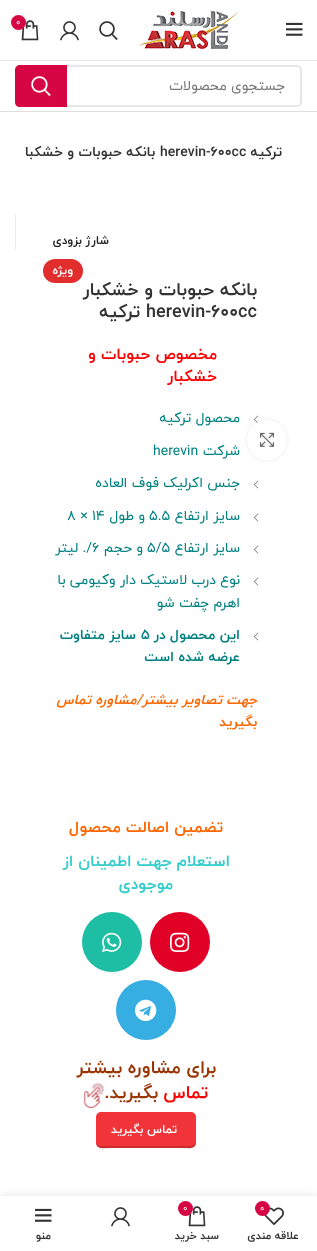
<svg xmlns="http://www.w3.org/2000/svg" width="317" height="1251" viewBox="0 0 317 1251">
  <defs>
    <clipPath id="clip1"><rect x="25" y="142" width="267" height="32"/></clipPath>
  </defs>
  <rect width="100%" height="100%" fill="rgb(255,255,255)"/>
  <rect x="0" y="60" width="317" height="1" fill="rgb(230,230,230)"/>
  <image x="286" y="22" width="17" height="14" href="pic1.png"/>
  <image x="138" y="11" width="100" height="38" href="pic2.png"/>
  <image x="99" y="21" width="19" height="20" href="pic3.png"/>
  <image x="60" y="21" width="19" height="20" href="pic4.png"/>
  <image x="21" y="20" width="18" height="21" href="pic5.png"/>
  <circle cx="18.5" cy="22.5" r="7.5" fill="rgb(214,6,68)"/>
  <text x="16" y="25" font-family="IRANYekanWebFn" font-size="9" fill="rgb(255,255,255)">0</text>
  <rect x="0" y="111" width="317" height="1" fill="rgb(222,222,222)"/>
  <rect x="16" y="66" width="285" height="40" rx="4" fill="none" stroke="rgb(230,230,230)" stroke-width="2"/>
  <text x="285" y="90" font-family="IRANYekanWebFn" font-size="14" direction="rtl" fill="rgb(119,119,119)">جستجوی محصولات</text>
  <path d="M20 65H67V107H20C17 107 15 105 15 102V70C15 67 17 65 20 65Z" fill="rgb(214,6,68)"/>
  <image x="31" y="76" width="20" height="21" href="pic6.png"/>
  <text x="282" y="156" font-family="IRANYekanWebFn" font-size="14" font-weight="bold" direction="rtl" fill="rgb(51,51,51)">ترکیه</text>
  <text x="160" y="156" font-family="IRANYekanWebFn" font-size="14" font-weight="bold" fill="rgb(51,51,51)">herevin-600cc</text>
  <g clip-path="url(#clip1)">
    <text x="155" y="156" font-family="IRANYekanWebFn" font-size="14" font-weight="bold" direction="rtl" fill="rgb(51,51,51)">بانکه حبوبات و خشکبار</text>
  </g>
  <rect x="15" y="214" width="1" height="36" fill="rgb(236,236,236)"/>
  <text x="109" y="244" font-family="IRANYekanWebFn" font-size="12" font-weight="bold" direction="rtl" fill="rgb(36,36,36)">شارژ بزودی</text>
  <text x="257" y="295" font-family="IRANYekanWebFn" font-size="18" font-weight="bold" direction="rtl" fill="rgb(51,51,51)">بانکه حبوبات و خشکبار</text>
  <rect x="43" y="259" width="40" height="24" rx="12" fill="rgb(226,45,45)"/>
  <text x="73" y="274" font-family="IRANYekanWebFn" font-size="12" font-weight="bold" direction="rtl" fill="rgb(255,255,255)">ویژه</text>
  <image x="253" y="415" width="6" height="8" href="pic8.png"/>
  <rect x="247" y="420" width="40" height="40" rx="20" fill="rgba(0,0,0,0.08)" filter="blur(2.5px)"/>
  <circle cx="267" cy="440" r="20" fill="rgb(255,255,255)"/>
  <image x="260" y="432" width="14" height="15" href="pic7.png"/>
  <text x="146" y="317" font-family="IRANYekanWebFn" font-size="18" font-weight="bold" fill="rgb(51,51,51)">herevin-600cc</text>
  <text x="140" y="317" font-family="IRANYekanWebFn" font-size="18" font-weight="bold" direction="rtl" fill="rgb(51,51,51)">ترکیه</text>
  <g font-family="IRANYekanWebFn" font-size="16" font-weight="bold" direction="rtl" fill="rgb(255,0,0)">
    <text>
      <tspan x="217" y="359">مخصوص حبوبات و</tspan>
      <tspan x="217" y="381">خشکبار</tspan>
    </text>
  </g>
  <g font-family="IRANYekanWebFn" font-size="14" direction="rtl" fill="rgb(0,128,128)">
    <text x="240" y="422">محصول ترکیه</text>
    <text x="240" y="455">شرکت</text>
  </g>
  <text x="153" y="455" font-family="IRANYekanWebFn" font-size="14" fill="rgb(0,128,128)">herevin</text>
  <image x="253" y="480" width="6" height="9" href="pic9.png"/>
  <text x="240" y="487" font-family="IRANYekanWebFn" font-size="14" direction="rtl" fill="rgb(0,128,128)">جنس اکرلیک فوف العاده</text>
  <image x="253" y="513" width="6" height="9" href="pic9.png"/>
  <text x="240" y="520" font-family="IRANYekanWebFn" font-size="14" direction="rtl" fill="rgb(0,128,128)">سایز ارتفاع</text>
  <text x="149" y="520" font-family="IRANYekanWebFn" font-size="14" fill="rgb(0,128,128)">5.5</text>
  <text x="145" y="520" font-family="IRANYekanWebFn" font-size="14" direction="rtl" fill="rgb(0,128,128)">و طول</text>
  <text x="67" y="520" font-family="IRANYekanWebFn" font-size="14" fill="rgb(0,128,128)">8 × 14</text>
  <image x="253" y="545" width="6" height="9" href="pic9.png"/>
  <text x="240" y="552" font-family="IRANYekanWebFn" font-size="14" direction="rtl" fill="rgb(0,128,128)">سایز ارتفاع</text>
  <text x="147" y="552" font-family="IRANYekanWebFn" font-size="14" fill="rgb(0,128,128)">5/5</text>
  <text x="143" y="552" font-family="IRANYekanWebFn" font-size="14" direction="rtl" fill="rgb(0,128,128)">و حجم</text>
  <text x="92" y="552" font-family="IRANYekanWebFn" font-size="14" fill="rgb(0,128,128)">6</text>
  <text x="92" y="552" font-family="IRANYekanWebFn" font-size="14" direction="rtl" fill="rgb(0,128,128)">/. لیتر</text>
  <image x="253" y="577" width="6" height="9" href="pic9.png"/>
  <g font-family="IRANYekanWebFn" font-size="14" direction="rtl" fill="rgb(0,128,128)">
    <text>
      <tspan x="240" y="584">نوع درب لاستیک دار وکیومی با</tspan>
      <tspan x="240" y="607">اهرم چفت شو</tspan>
    </text>
  </g>
  <image x="253" y="632" width="6" height="9" href="pic9.png"/>
  <text x="240" y="639" font-family="IRANYekanWebFn" font-size="14" font-weight="bold" direction="rtl" fill="rgb(0,128,128)">این محصول در</text>
  <text x="141" y="639" font-family="IRANYekanWebFn" font-size="14" font-weight="bold" fill="rgb(0,128,128)">5</text>
  <g font-family="IRANYekanWebFn" font-size="14" font-weight="bold" direction="rtl" fill="rgb(0,128,128)">
    <text x="136" y="639">سایز متفاوت</text>
    <text x="240" y="661">عرضه شده است</text>
  </g>
  <text x="257" y="704" font-family="IRANYekanWebFn" font-size="14" font-weight="bold" font-style="italic" direction="rtl" fill="rgb(255,102,0)">جهت تصاویر بیشتر/مشاوره تماس</text>
  <text x="257" y="726" font-family="IRANYekanWebFn" font-size="14" font-weight="bold" direction="rtl" fill="rgb(255,102,0)">بگیرید</text>
  <text x="223" y="832" font-family="IRANYekanWebFn" font-size="16" font-weight="bold" direction="rtl" fill="rgb(255,102,0)">تضمین اصالت محصول</text>
  <g font-family="IRANYekanWebFn" font-size="16" font-weight="bold" direction="rtl" fill="rgb(51,204,204)">
    <text x="230" y="866">استعلام جهت اطمینان از</text>
    <text x="173" y="889">موجودی</text>
  </g>
  <circle cx="180" cy="942" r="30" fill="rgb(225,0,38)"/>
  <image x="170" y="932" width="20" height="20" href="pic10.png"/>
  <circle cx="112" cy="942" r="30" fill="rgb(30,190,165)"/>
  <image x="102" y="932" width="20" height="20" href="pic11.png"/>
  <circle cx="146" cy="1010" r="30" fill="rgb(55,174,226)"/>
  <image x="135" y="999" width="22" height="22" href="pic12.png"/>
  <text x="216" y="1073" font-family="IRANYekanWebFn" font-size="18" font-weight="bold" direction="rtl" fill="rgb(153,51,0)">برای مشاوره بیشتر</text>
  <text x="208" y="1098" font-family="IRANYekanWebFn" font-size="18" font-weight="bold" direction="rtl" fill="rgb(255,0,0)">تماس</text>
  <text x="158" y="1098" font-family="IRANYekanWebFn" font-size="18" font-weight="bold" direction="rtl" fill="rgb(153,51,0)">بگیرید.</text>
  <image x="83" y="1083" width="21" height="25" href="pic13.png"/>
  <rect x="96" y="1112" width="100" height="36" rx="5" fill="rgb(240,52,57)"/>
  <path d="M96 1141C96 1152 107 1148 116 1148H176C185 1148 196 1152 196 1141C196 1144 194 1146 191 1146H101C98 1146 96 1144 96 1141Z" fill="rgba(0,0,0,0.15)"/>
  <text x="177" y="1133" font-family="IRANYekanWebFn" font-size="12" font-weight="bold" direction="rtl" fill="rgb(255,255,255)">تماس بگیرید</text>
  <rect x="0" y="1196" width="317" height="55" fill="rgba(0,0,0,0.12)" filter="blur(4.5px)"/>
  <rect x="0" y="1196" width="317" height="55" fill="rgb(255,255,255)"/>
  <image x="264" y="1207" width="20" height="18" href="pic14.png"/>
  <circle cx="262.5" cy="1208.5" r="7.5" fill="rgb(214,6,68)"/>
  <text x="260" y="1211" font-family="IRANYekanWebFn" font-size="9" fill="rgb(255,255,255)">0</text>
  <text x="299" y="1239" font-family="IRANYekanWebFn" font-size="11" font-weight="bold" direction="rtl" fill="rgb(51,51,51)">علاقه مندی</text>
  <image x="188" y="1206" width="18" height="21" href="pic5.png"/>
  <circle cx="185.5" cy="1208.5" r="7.5" fill="rgb(214,6,68)"/>
  <text x="183" y="1211" font-family="IRANYekanWebFn" font-size="9" fill="rgb(255,255,255)">0</text>
  <text x="219" y="1239" font-family="IRANYekanWebFn" font-size="11" font-weight="bold" direction="rtl" fill="rgb(51,51,51)">سبد خرید</text>
  <image x="111" y="1207" width="19" height="20" href="pic4.png"/>
  <image x="35" y="1208" width="17" height="14" href="pic1.png"/>
  <text x="51" y="1239" font-family="IRANYekanWebFn" font-size="11" font-weight="bold" direction="rtl" fill="rgb(51,51,51)">منو</text>
</svg>
